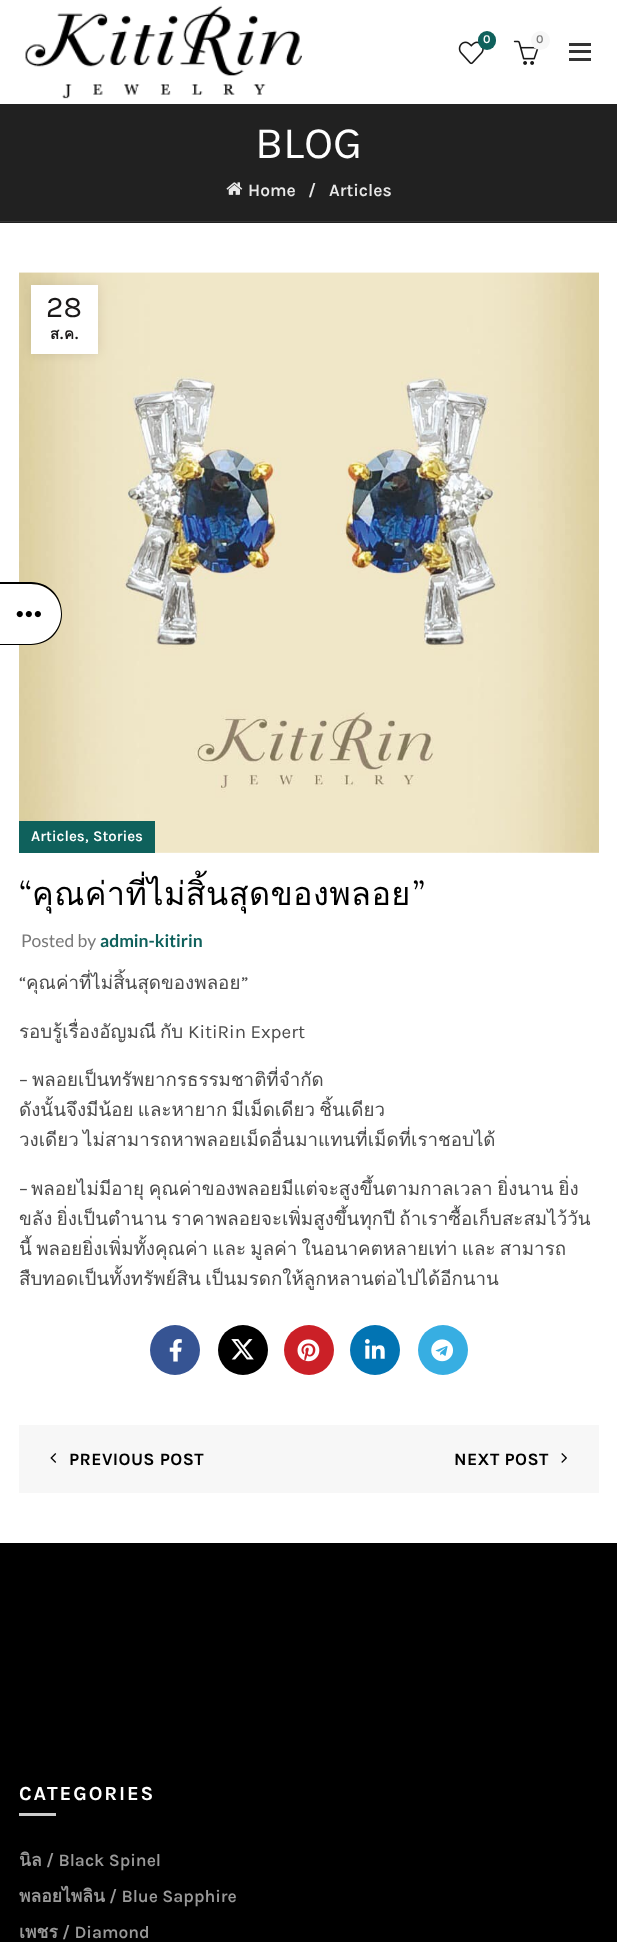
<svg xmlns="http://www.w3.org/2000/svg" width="617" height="1942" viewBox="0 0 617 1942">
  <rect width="100%" height="100%" fill="rgb(255,255,255)"/>
  <image x="25" y="5" width="277" height="94" href="pic1.png"/>
  <image x="458" y="41" width="26" height="24" href="pic2.png"/>
  <rect x="478" y="31" width="18" height="19" rx="9" fill="rgb(15,97,92)"/>
  <text x="483" y="43" font-family="Karla" font-size="12" font-weight="600" fill="rgb(255,255,255)">0</text>
  <image x="513" y="40" width="26" height="25" href="pic3.png"/>
  <circle cx="540.5" cy="40.5" r="9.5" fill="rgb(247,247,247)"/>
  <text x="536" y="43" font-family="Karla" font-size="12" font-weight="600" fill="rgb(126,126,126)">0</text>
  <rect x="569" y="50" width="22" height="3" fill="rgb(51,51,51)"/>
  <rect x="569" y="43" width="22" height="3" fill="rgb(51,51,51)"/>
  <rect x="569" y="58" width="22" height="3" fill="rgb(51,51,51)"/>
  <rect x="0" y="104" width="617" height="119" fill="rgb(33,33,33)"/>
  <rect x="0" y="221" width="617" height="1" fill="rgb(53,53,53)"/>
  <text x="255" y="158" font-family="Karla" font-size="45" fill="rgb(255,255,255)">BLOG</text>
  <image x="226" y="182" width="17" height="13" href="pic4.png"/>
  <g font-family="Karla" font-size="17.5" font-weight="600" fill="rgb(233,233,233)">
    <text x="248" y="196">Home</text>
    <text x="308" y="196">/</text>
    <text x="329" y="196">Articles</text>
  </g>
  <image x="19" y="272" width="580" height="581" href="pic5.png"/>
  <rect x="31" y="285" width="67" height="69" fill="rgba(0,0,0,0.1)" filter="blur(5.5px)"/>
  <rect x="31" y="285" width="67" height="69" fill="rgb(255,255,255)"/>
  <text x="46" y="317" font-family="Karla" font-size="30" fill="rgb(27,25,25)">28</text>
  <text x="50" y="339" font-family="Loma" font-size="15" font-weight="bold" letter-spacing="1" fill="rgb(27,25,25)">ส</text>
  <text x="60" y="339" font-family="Karla" font-size="15" font-weight="bold" letter-spacing="1" fill="rgb(27,25,25)">.</text>
  <text x="64" y="339" font-family="Loma" font-size="15" font-weight="bold" letter-spacing="1" fill="rgb(27,25,25)">ค</text>
  <text x="75" y="339" font-family="Karla" font-size="15" font-weight="bold" letter-spacing="1" fill="rgb(27,25,25)">.</text>
  <rect x="19" y="821" width="136" height="32" fill="rgb(15,97,92)"/>
  <text x="31" y="841" font-family="Karla" font-size="15" font-weight="600" fill="rgb(255,255,255)">Articles</text>
  <text x="85" y="841" font-family="Karla" font-size="17.5" fill="rgb(255,255,255)">,</text>
  <text x="93" y="841" font-family="Karla" font-size="15" font-weight="600" fill="rgb(255,255,255)">Stories</text>
  <text x="19" y="905" font-family="Lora" font-size="32.5" letter-spacing="0.4" fill="rgb(0,0,0)">“</text>
  <text x="32" y="905" font-family="Loma" font-size="32.5" letter-spacing="0.4" fill="rgb(0,0,0)">คุณค่าที่ไม่สิ้นสุดของพลอย</text>
  <text x="413" y="905" font-family="Lora" font-size="32.5" letter-spacing="0.4" fill="rgb(0,0,0)">”</text>
  <text x="21" y="947" font-family="Lato" font-size="17.5" fill="rgb(120,120,120)">Posted by</text>
  <text x="100" y="947" font-family="Lato" font-size="17.5" font-weight="bold" fill="rgb(15,97,92)">admin-kitirin</text>
  <text x="19" y="989" font-family="Karla" font-size="18.75" fill="rgb(76,76,76)">“</text>
  <text x="26" y="989" font-family="Loma" font-size="18.75" fill="rgb(76,76,76)">คุณค่าที่ไม่สิ้นสุดของพลอย</text>
  <text x="241" y="989" font-family="Karla" font-size="18.75" fill="rgb(76,76,76)">”</text>
  <g font-family="Loma" font-size="18.75" fill="rgb(76,76,76)">
    <text x="19" y="1038">รอบรู้เรื่องอัญมณี</text>
    <text x="160" y="1038">กับ</text>
  </g>
  <g font-family="Karla" font-size="18.75" fill="rgb(76,76,76)">
    <text x="188" y="1038">KitiRin Expert</text>
    <text x="19" y="1086">–</text>
  </g>
  <g font-family="Loma" font-size="18.75" fill="rgb(76,76,76)">
    <text x="32" y="1086">พลอยเป็นทรัพยากรธรรมชาติที่จำกัด</text>
    <text>
      <tspan x="19" y="1116" word-spacing="-2">ดังนั้นจึงมีน้อย และหายาก มีเม็ดเดียว ชิ้นเดียว</tspan>
      <tspan x="19" y="1146" word-spacing="-2">วงเดียว ไม่สามารถหาพลอยเม็ดอื่นมาแทนที่เม็ดที่เราชอบได้</tspan>
    </text>
  </g>
  <text x="19" y="1195" font-family="Karla" font-size="18.75" fill="rgb(76,76,76)">–</text>
  <g font-family="Loma" font-size="18.75" fill="rgb(76,76,76)">
    <text x="31" y="1195" word-spacing="-1.5">พลอยไม่มีอายุ คุณค่าของพลอยมีแต่จะสูงขึ้นตามกาลเวลา ยิ่งนาน ยิ่ง</text>
    <text>
      <tspan x="19" y="1225" word-spacing="-2">ขลัง ยิ่งเป็นตำนาน ราคาพลอยจะเพิ่มสูงขึ้นทุกปี ถ้าเราซื้อเก็บสะสมไว้วัน</tspan>
      <tspan x="19" y="1255" word-spacing="-2">นี้ พลอยยิ่งเพิ่มทั้งคุณค่า และ มูลค่า ในอนาคตหลายเท่า และ สามารถ</tspan>
      <tspan x="19" y="1285" word-spacing="-2">สืบทอดเป็นทั้งทรัพย์สิน เป็นมรดกให้ลูกหลานต่อไปได้อีกนาน</tspan>
    </text>
  </g>
  <circle cx="175" cy="1350" r="25" fill="rgb(54,84,147)"/>
  <image x="169" y="1339" width="13" height="23" href="pic6.png"/>
  <circle cx="243" cy="1350" r="25" fill="rgb(0,0,0)"/>
  <image x="231" y="1339" width="23" height="21" href="pic7.png"/>
  <circle cx="309" cy="1350" r="25" fill="rgb(203,32,39)"/>
  <image x="297" y="1339" width="23" height="23" href="pic8.png"/>
  <circle cx="375" cy="1350" r="25" fill="rgb(2,116,179)"/>
  <image x="365" y="1339" width="20" height="20" href="pic9.png"/>
  <circle cx="443" cy="1350" r="25" fill="rgb(55,174,226)"/>
  <image x="431" y="1339" width="23" height="23" href="pic10.png"/>
  <rect x="19" y="1425" width="580" height="68" fill="rgb(247,247,247)"/>
  <image x="50" y="1453" width="7" height="10" href="pic11.png"/>
  <g font-family="Karla" font-size="17.5" font-weight="bold" letter-spacing="0.4" fill="rgb(0,0,0)">
    <text x="69" y="1465">PREVIOUS POST</text>
    <text x="454" y="1465">NEXT POST</text>
  </g>
  <image x="561" y="1453" width="6" height="10" href="pic12.png"/>
  <rect x="0" y="1543" width="617" height="399" fill="rgb(0,0,0)"/>
  <text x="19" y="1800" font-family="Karla" font-size="20" font-weight="bold" letter-spacing="1.9" fill="rgb(255,255,255)">CATEGORIES</text>
  <rect x="19" y="1813" width="37" height="3" fill="rgb(204,204,204)"/>
  <text x="19" y="1866" font-family="Loma" font-size="17.5" font-weight="bold" fill="rgb(153,153,153)">นิล</text>
  <text x="46" y="1866" font-family="Karla" font-size="17.5" font-weight="600" fill="rgb(153,153,153)">/ Black Spinel</text>
  <text x="19" y="1902" font-family="Loma" font-size="17.5" font-weight="bold" fill="rgb(153,153,153)">พลอยไพลิน</text>
  <text x="109" y="1902" font-family="Karla" font-size="17.5" font-weight="600" fill="rgb(153,153,153)">/ Blue Sapphire</text>
  <text x="19" y="1938" font-family="Loma" font-size="17.5" font-weight="bold" fill="rgb(153,153,153)">เพชร</text>
  <text x="62" y="1938" font-family="Karla" font-size="17.5" font-weight="600" fill="rgb(153,153,153)">/ Diamond</text>
  <path d="M0 584H31C47.5 584 61 597.5 61 614C61 630.5 47.5 644 31 644H0Z" fill="rgb(255,255,255)"/>
  <path d="M0 582H31C49 582 62 596 62 614C62 631 49 645 31 645H0ZM0 584H31C48 584 61 597 61 614C61 630 48 644 31 644H0Z" fill="rgb(0,0,0)" fill-rule="evenodd"/>
  <image x="16" y="611" width="25" height="7" href="pic13.png"/>
</svg>
